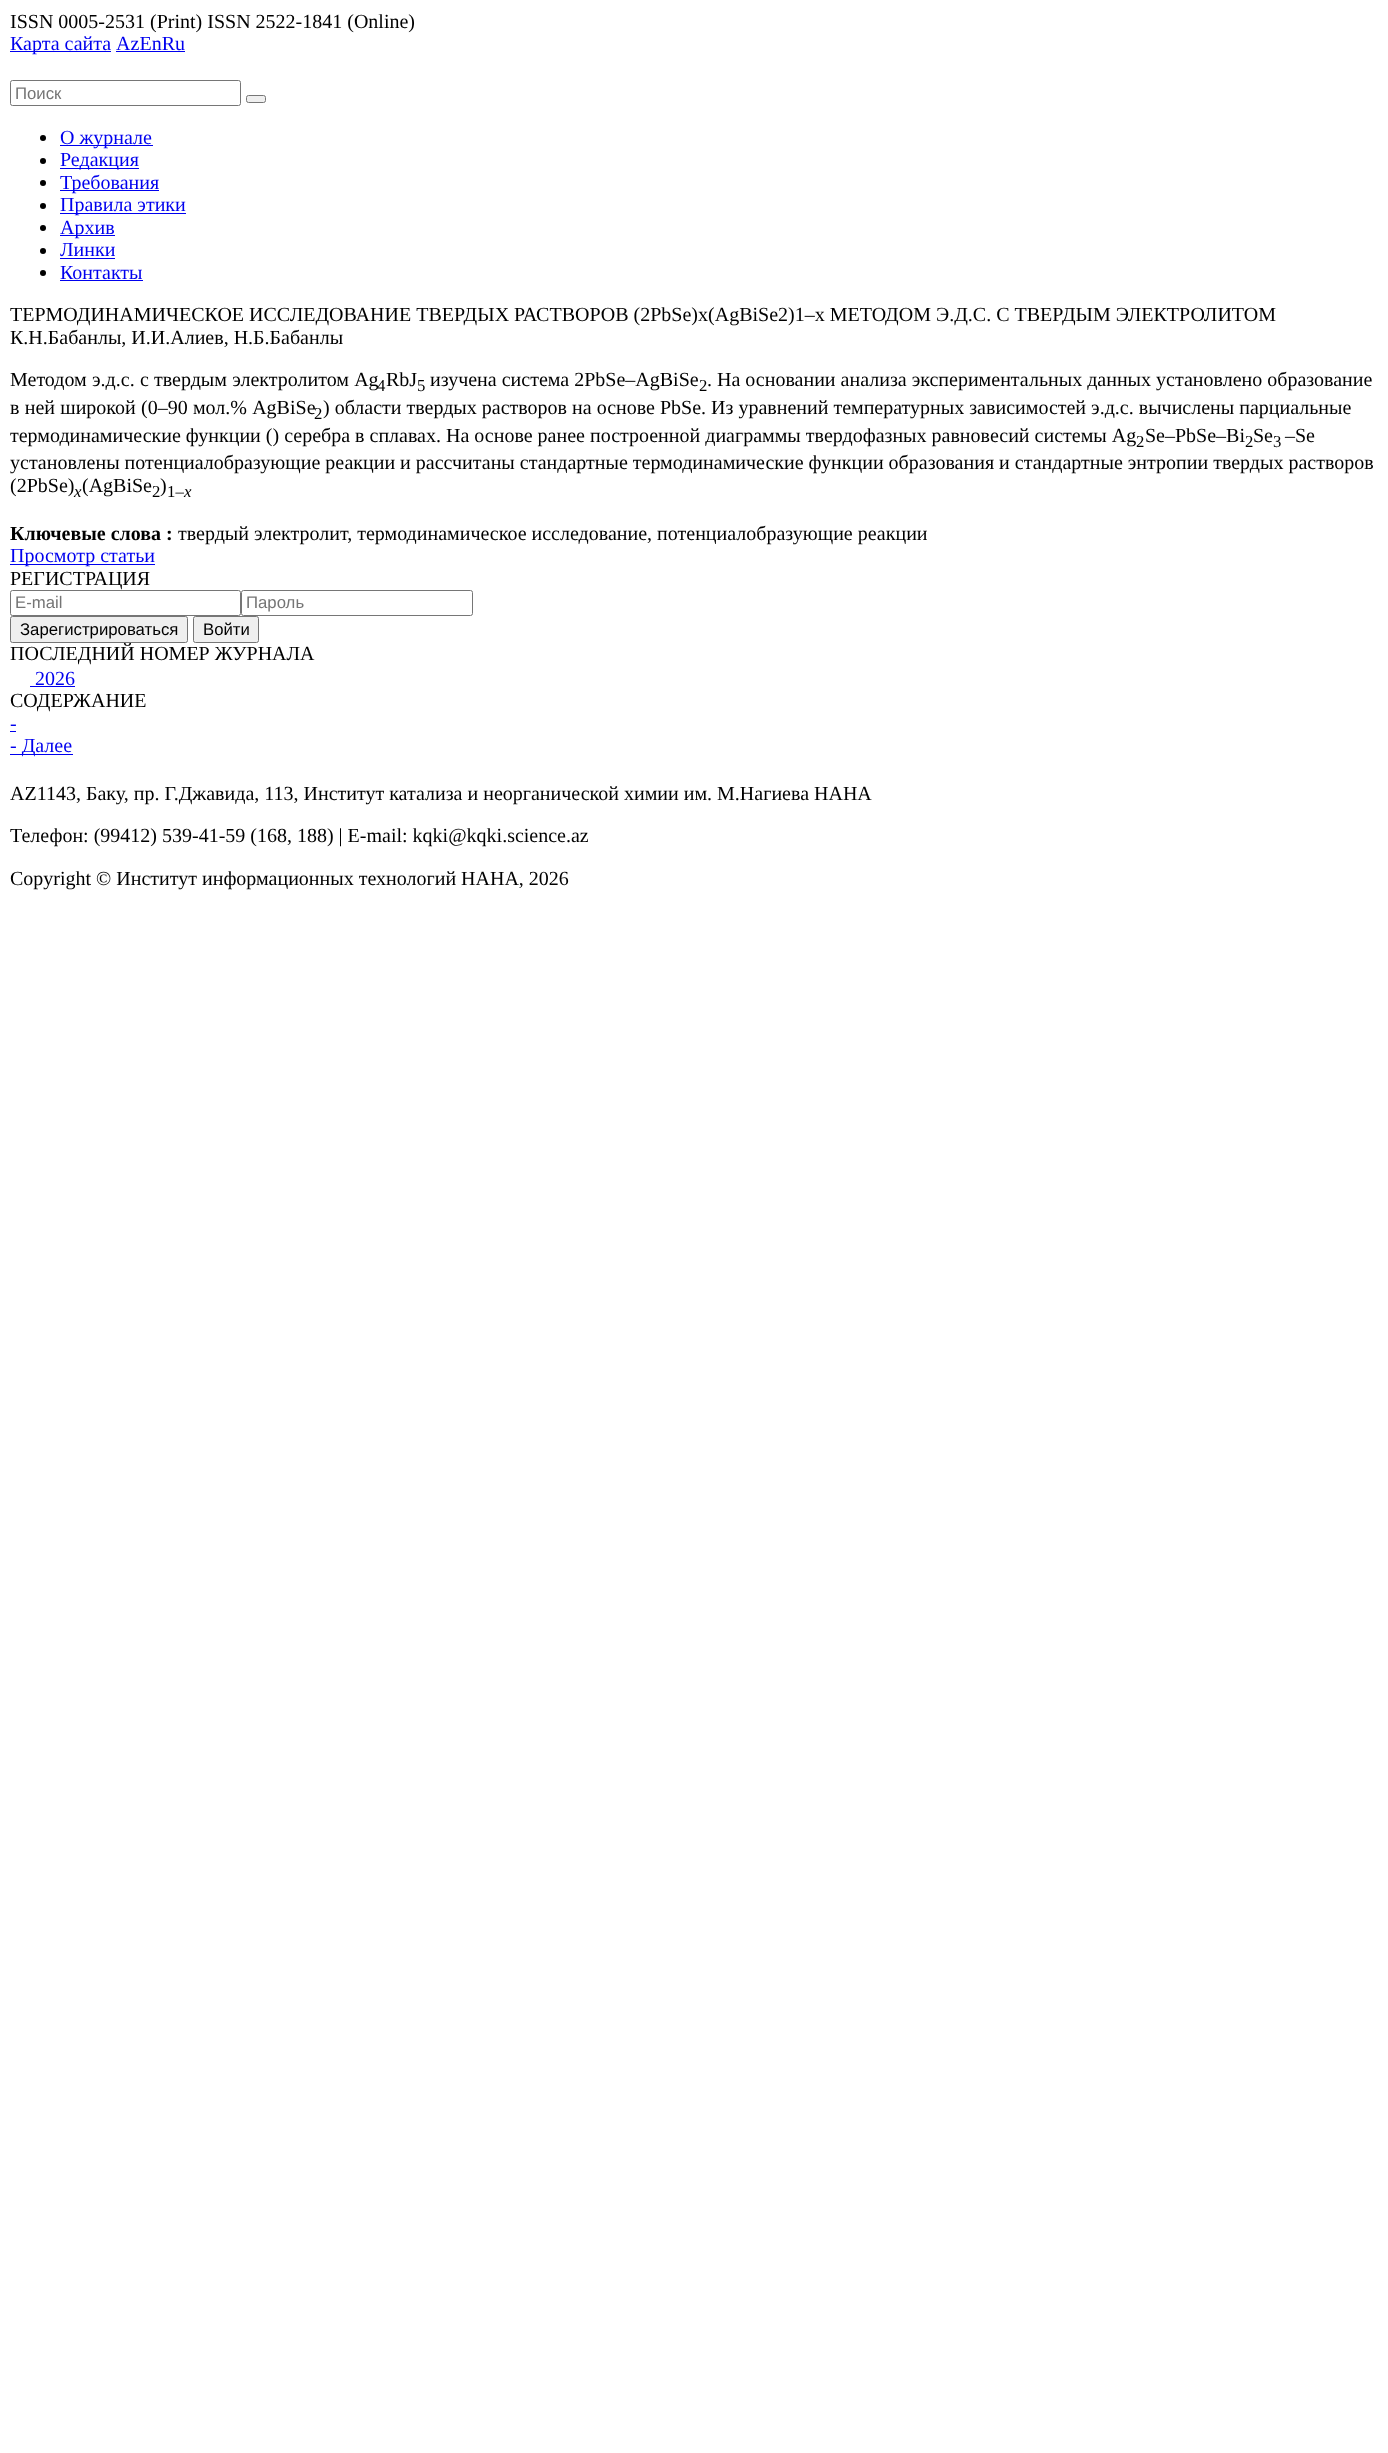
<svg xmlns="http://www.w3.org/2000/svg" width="1388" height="2453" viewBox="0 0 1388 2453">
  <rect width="100%" height="100%" fill="rgb(255,255,255)"/>
  <text x="10" y="28" font-family="Liberation Serif" font-size="20" fill="rgb(0,0,0)">ISSN 0005-2531 (Print) ISSN 2522-1841 (Online)</text>
  <rect x="10" y="51" width="101" height="1" fill="rgb(0,0,238)"/>
  <text x="10" y="50" font-family="Liberation Serif" font-size="20" fill="rgb(0,0,238)">Карта сайта AzEnRu</text>
  <rect x="116" y="51" width="69" height="1" fill="rgb(0,0,238)"/>
  <rect x="10.5" y="80.5" width="230" height="25" rx="2" fill="none" stroke="rgb(118,118,118)"/>
  <text x="15" y="99" font-family="Liberation Sans" font-size="16.75" fill="rgb(117,117,117)">Поиск</text>
  <rect x="246.5" y="95.5" width="19" height="7" rx="2" fill="rgb(239,239,239)" stroke="rgb(118,118,118)"/>
  <circle cx="43" cy="138" r="3" fill="rgb(0,0,0)"/>
  <rect x="60" y="145" width="93" height="1" fill="rgb(0,0,238)"/>
  <text x="60" y="144" font-family="Liberation Serif" font-size="20" fill="rgb(0,0,238)">О журнале</text>
  <circle cx="43" cy="161" r="3" fill="rgb(0,0,0)"/>
  <rect x="60" y="168" width="79" height="1" fill="rgb(0,0,238)"/>
  <text x="60" y="166" font-family="Liberation Serif" font-size="20" fill="rgb(0,0,238)">Редакция</text>
  <circle cx="43" cy="183" r="3" fill="rgb(0,0,0)"/>
  <rect x="60" y="190" width="99" height="1" fill="rgb(0,0,238)"/>
  <text x="60" y="189" font-family="Liberation Serif" font-size="20" fill="rgb(0,0,238)">Требования</text>
  <circle cx="43" cy="206" r="3" fill="rgb(0,0,0)"/>
  <rect x="60" y="213" width="126" height="1" fill="rgb(0,0,238)"/>
  <text x="60" y="211" font-family="Liberation Serif" font-size="20" fill="rgb(0,0,238)">Правила этики</text>
  <circle cx="43" cy="228" r="3" fill="rgb(0,0,0)"/>
  <rect x="60" y="235" width="55" height="1" fill="rgb(0,0,238)"/>
  <text x="60" y="234" font-family="Liberation Serif" font-size="20" fill="rgb(0,0,238)">Архив</text>
  <circle cx="43" cy="251" r="3" fill="rgb(0,0,0)"/>
  <text x="60" y="256" font-family="Liberation Serif" font-size="20" fill="rgb(0,0,238)">Линки</text>
  <rect x="60" y="258" width="55" height="1" fill="rgb(0,0,238)"/>
  <circle cx="43" cy="273" r="3" fill="rgb(0,0,0)"/>
  <text x="60" y="279" font-family="Liberation Serif" font-size="20" fill="rgb(0,0,238)">Контакты</text>
  <rect x="60" y="280" width="83" height="1" fill="rgb(0,0,238)"/>
  <g font-family="Liberation Serif" font-size="20" fill="rgb(0,0,0)">
    <text>
      <tspan x="10" y="321">ТЕРМОДИНАМИЧЕСКОЕ ИССЛЕДОВАНИЕ ТВЕРДЫХ РАСТВОРОВ (2PbSe)х(AgBiSe2)1–х МЕТОДОМ Э.Д.С. С ТВЕРДЫМ ЭЛЕКТРОЛИТОМ</tspan>
      <tspan x="10" y="344">К.Н.Бабанлы, И.И.Алиев, Н.Б.Бабанлы</tspan>
    </text>
    <text x="10" y="386" word-spacing="0.25">Методом э.д.с. с твердым электролитом Ag</text>
  </g>
  <text x="377" y="391" font-family="Liberation Serif" font-size="16.75" fill="rgb(0,0,0)">4</text>
  <text x="386" y="386" font-family="Liberation Serif" font-size="20" fill="rgb(0,0,0)">RbJ</text>
  <text x="417" y="391" font-family="Liberation Serif" font-size="16.75" fill="rgb(0,0,0)">5</text>
  <text x="430" y="386" font-family="Liberation Serif" font-size="20" fill="rgb(0,0,0)">изучена система 2PbSe–AgBiSe</text>
  <text x="699" y="391" font-family="Liberation Serif" font-size="16.75" fill="rgb(0,0,0)">2</text>
  <g font-family="Liberation Serif" font-size="20" fill="rgb(0,0,0)">
    <text x="707" y="386">. На основании анализа экспериментальных данных установлено образование</text>
    <text x="10" y="414" word-spacing="0.25">в ней широкой (0–90 мол.% AgBiSe</text>
  </g>
  <text x="314" y="419" font-family="Liberation Serif" font-size="16.75" fill="rgb(0,0,0)">2</text>
  <g font-family="Liberation Serif" font-size="20" fill="rgb(0,0,0)">
    <text x="323" y="414">) области твердых растворов на основе PbSe. Из уравнений температурных зависимостей э.д.с. вычислены парциальные</text>
    <text x="10" y="442">термодинамические функции () серебра в сплавах. На основе ранее построенной диаграммы твердофазных равновесий системы Ag</text>
  </g>
  <text x="1136" y="447" font-family="Liberation Serif" font-size="16.75" fill="rgb(0,0,0)">2</text>
  <text x="1145" y="442" font-family="Liberation Serif" font-size="20" fill="rgb(0,0,0)">Se–PbSe–Bi</text>
  <text x="1245" y="447" font-family="Liberation Serif" font-size="16.75" fill="rgb(0,0,0)">2</text>
  <text x="1253" y="442" font-family="Liberation Serif" font-size="20" fill="rgb(0,0,0)">Se</text>
  <text x="1273" y="447" font-family="Liberation Serif" font-size="16.75" fill="rgb(0,0,0)">3</text>
  <g font-family="Liberation Serif" font-size="20" fill="rgb(0,0,0)">
    <text x="1285" y="442">–Se</text>
    <text>
      <tspan x="10" y="469">установлены потенциалобразующие реакции и рассчитаны стандартные термодинамические функции образования и стандартные энтропии твердых растворов</tspan>
      <tspan x="10" y="492">(2PbSe)</tspan>
    </text>
  </g>
  <text x="74" y="497" font-family="Liberation Serif" font-size="16.75" font-style="italic" fill="rgb(0,0,0)">x</text>
  <text x="82" y="492" font-family="Liberation Serif" font-size="20" fill="rgb(0,0,0)">(AgBiSe</text>
  <text x="152" y="497" font-family="Liberation Serif" font-size="16.75" fill="rgb(0,0,0)">2</text>
  <text x="160" y="492" font-family="Liberation Serif" font-size="20" fill="rgb(0,0,0)">)</text>
  <text x="167" y="497" font-family="Liberation Serif" font-size="16.75" fill="rgb(0,0,0)">1–</text>
  <text x="184" y="497" font-family="Liberation Serif" font-size="16.75" font-style="italic" fill="rgb(0,0,0)">x</text>
  <text x="10" y="540" font-family="Liberation Serif" font-size="20" font-weight="bold" fill="rgb(0,0,0)">Ключевые слова :</text>
  <text x="178" y="540" font-family="Liberation Serif" font-size="20" fill="rgb(0,0,0)">твердый электролит, термодинамическое исследование, потенциалобразующие реакции</text>
  <rect x="10" y="564" width="145" height="1" fill="rgb(0,0,238)"/>
  <text x="10" y="562" font-family="Liberation Serif" font-size="20" fill="rgb(0,0,238)">Просмотр статьи</text>
  <text x="10" y="585" font-family="Liberation Serif" font-size="20" fill="rgb(0,0,0)">РЕГИСТРАЦИЯ</text>
  <rect x="10.5" y="590.5" width="230" height="25" rx="2" fill="none" stroke="rgb(118,118,118)"/>
  <text x="15" y="608" font-family="Liberation Sans" font-size="16.75" fill="rgb(117,117,117)">E-mail</text>
  <rect x="241.5" y="590.5" width="231" height="25" rx="2" fill="none" stroke="rgb(118,118,118)"/>
  <text x="246" y="608" font-family="Liberation Sans" font-size="16.75" fill="rgb(117,117,117)">Пароль</text>
  <rect x="10.5" y="616.5" width="177" height="26" rx="2" fill="rgb(239,239,239)" stroke="rgb(118,118,118)"/>
  <text x="20" y="635" font-family="Liberation Sans" font-size="16.75" fill="rgb(0,0,0)">Зарегистрироваться</text>
  <rect x="193.5" y="616.5" width="65" height="26" rx="2" fill="rgb(239,239,239)" stroke="rgb(118,118,118)"/>
  <text x="203" y="635" font-family="Liberation Sans" font-size="16.75" fill="rgb(0,0,0)">Войти</text>
  <text x="10" y="660" font-family="Liberation Serif" font-size="20" fill="rgb(0,0,0)">ПОСЛЕДНИЙ НОМЕР ЖУРНАЛА</text>
  <text x="35" y="685" font-family="Liberation Serif" font-size="20" fill="rgb(0,0,238)">2026</text>
  <rect x="30" y="686" width="45" height="1" fill="rgb(0,0,238)"/>
  <text x="10" y="707" font-family="Liberation Serif" font-size="20" fill="rgb(0,0,0)">СОДЕРЖАНИЕ</text>
  <text x="10" y="730" font-family="Liberation Serif" font-size="20" fill="rgb(0,0,238)">-</text>
  <rect x="10" y="731" width="6" height="1" fill="rgb(0,0,238)"/>
  <rect x="10" y="754" width="63" height="1" fill="rgb(0,0,238)"/>
  <text x="10" y="752" font-family="Liberation Serif" font-size="20" fill="rgb(0,0,238)">- Далее</text>
  <g font-family="Liberation Serif" font-size="20" fill="rgb(0,0,0)">
    <text x="10" y="800">АZ1143, Баку, пр. Г.Джавида, 113, Институт катализа и неорганической химии им. М.Нагиева НАНА</text>
    <text x="10" y="842">Телефон: (99412) 539-41-59 (168, 188) | E-mail: kqki@kqki.science.az</text>
    <text x="10" y="885">Copyright © Институт информационных технологий НАНА, 2026</text>
  </g>
</svg>
